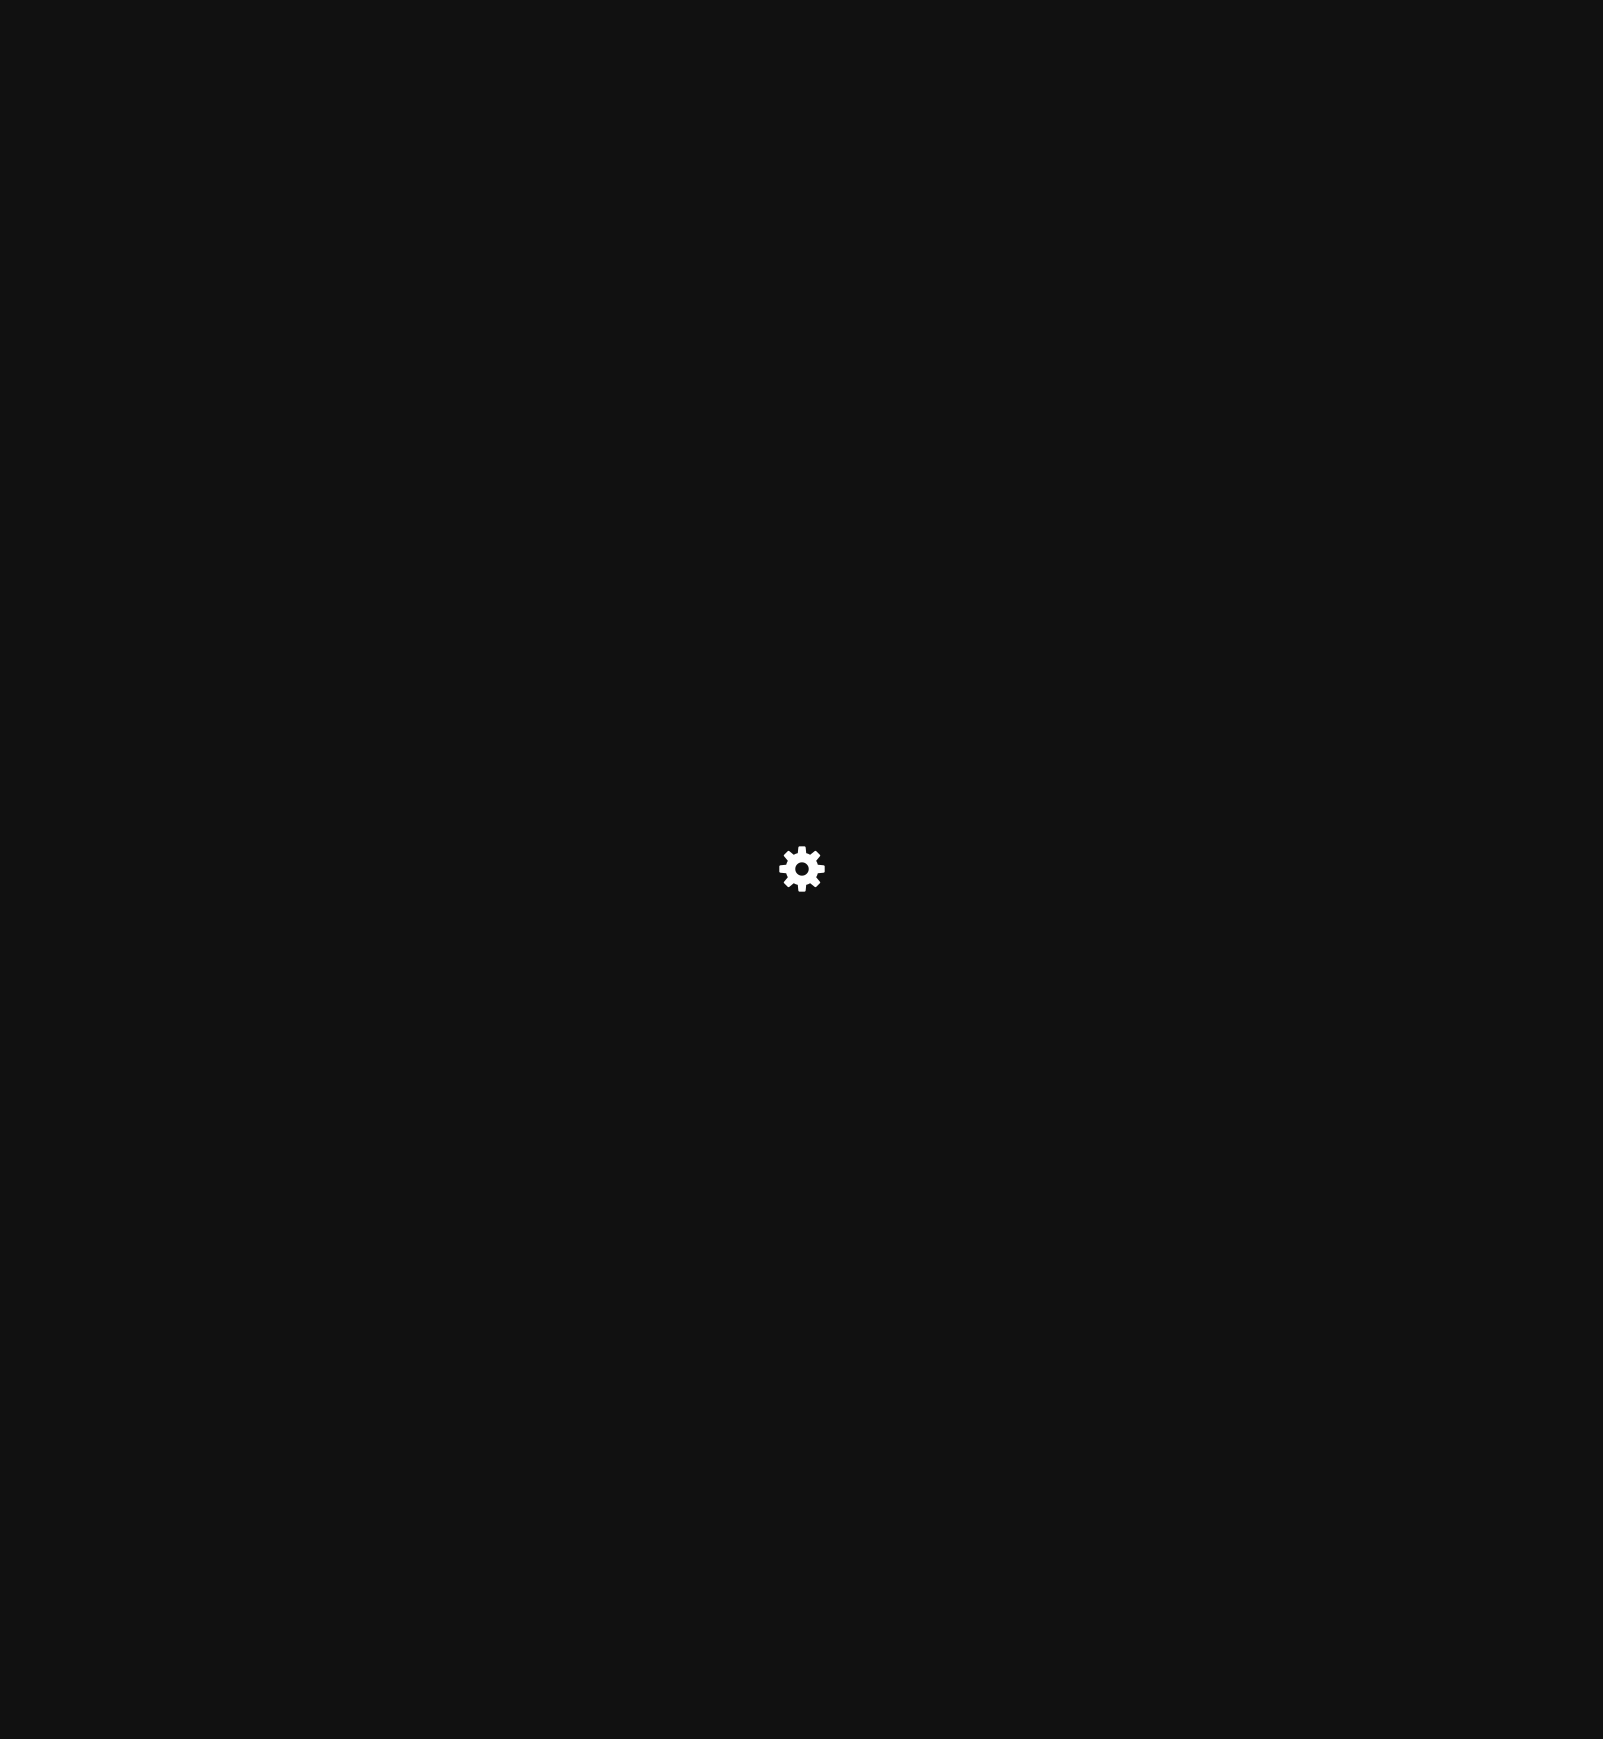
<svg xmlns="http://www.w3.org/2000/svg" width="1603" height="1739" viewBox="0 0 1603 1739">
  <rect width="100%" height="100%" fill="rgb(17,17,17)"/>
  <image x="779" y="846" width="46" height="46" href="pic1.png"/>
</svg>
